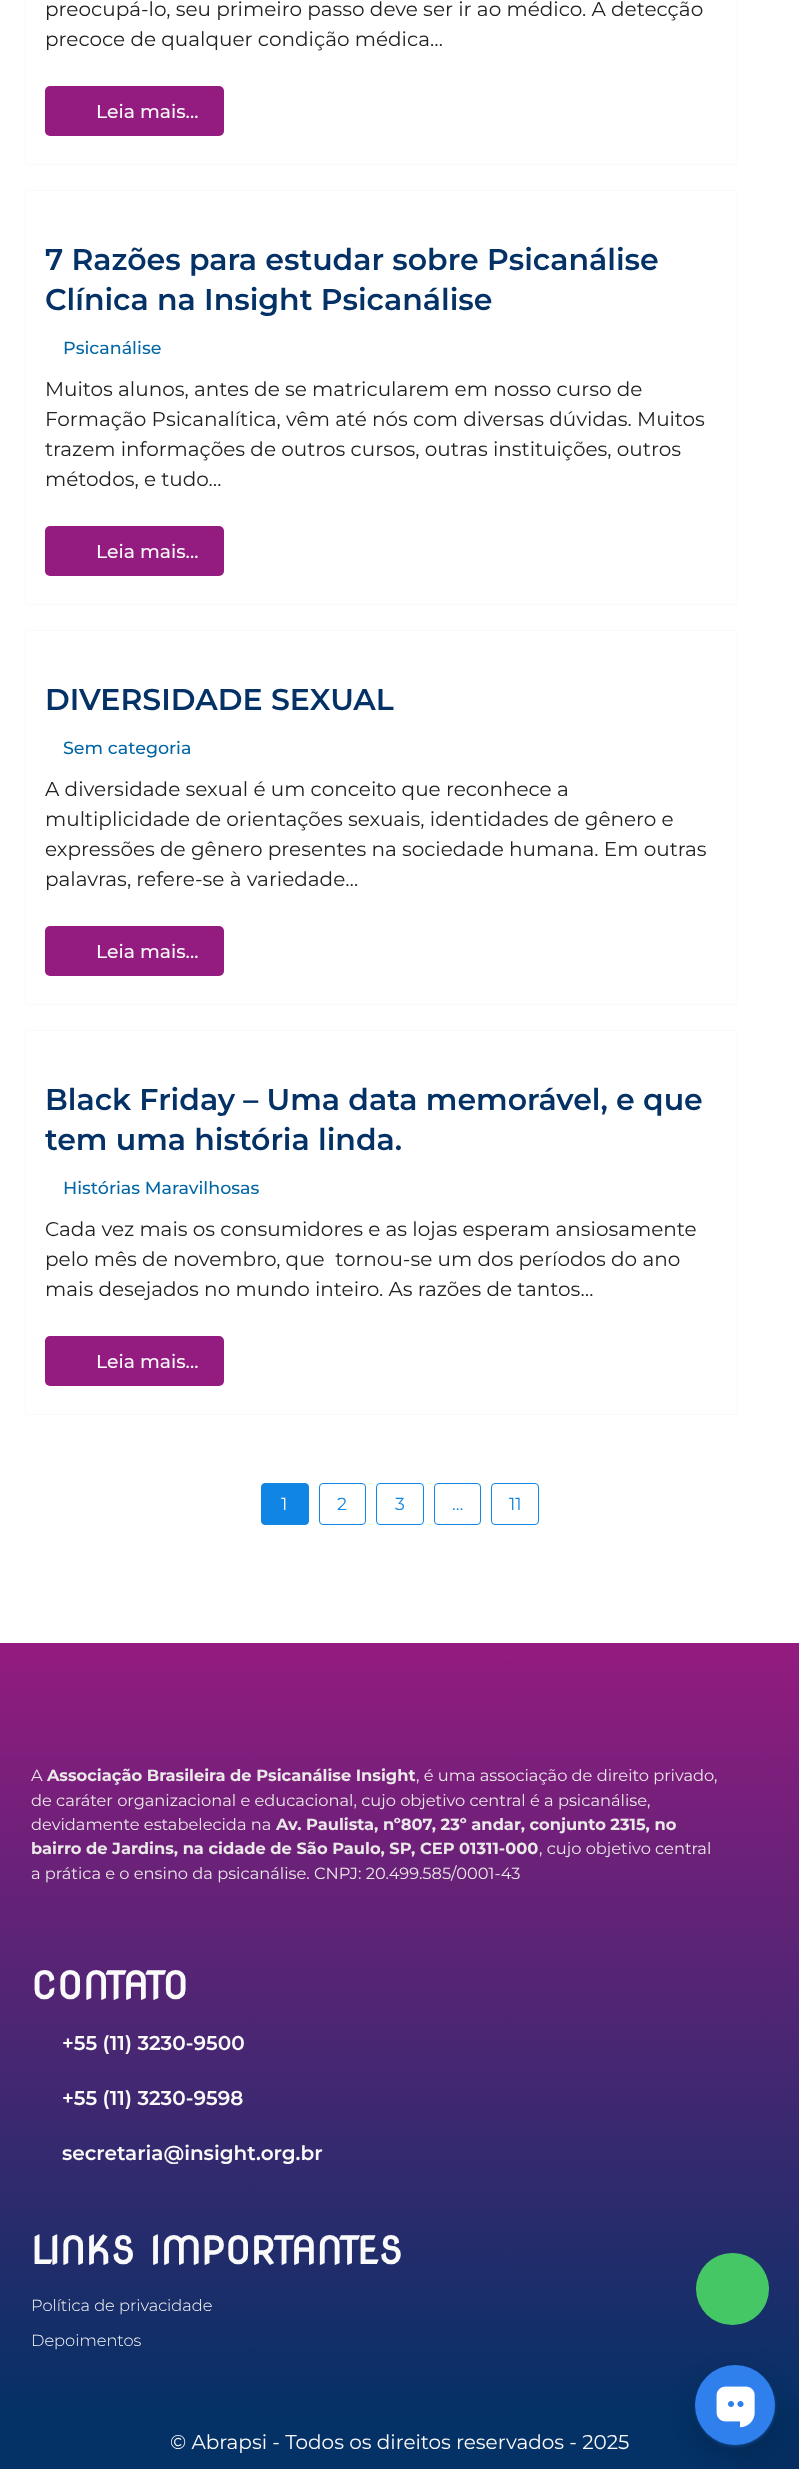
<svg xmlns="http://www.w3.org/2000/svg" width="799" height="2469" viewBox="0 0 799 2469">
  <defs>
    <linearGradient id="g1" gradientUnits="userSpaceOnUse" x1="400" y1="1643" x2="400" y2="2415"><stop offset="0" stop-color="rgb(148,27,128)"/><stop offset="1" stop-color="rgb(4,49,102)"/></linearGradient>
    <linearGradient id="g2" gradientUnits="userSpaceOnUse" x1="675" y1="2345" x2="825" y2="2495"><stop offset="0.5" stop-color="rgb(14,14,41)" stop-opacity="0"/><stop offset="1" stop-color="rgb(14,14,41)" stop-opacity="0.2"/></linearGradient>
  </defs>
  <rect width="100%" height="100%" fill="rgb(255,255,255)"/>
  <rect x="25.5" y="-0.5" width="712" height="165" fill="none" stroke="rgb(250,250,250)"/>
  <g font-family="Montserrat" font-size="20" fill="rgb(34,34,34)">
    <text>
      <tspan x="45" y="16">preocupá-lo, seu primeiro passo deve ser ir ao médico. A detecção</tspan>
      <tspan x="45" y="46">precoce de qualquer condição médica…</tspan>
    </text>
  </g>
  <rect x="45" y="86" width="179" height="50" rx="5" fill="rgb(148,27,128)"/>
  <text x="96" y="118" font-family="Montserrat" font-size="18.75" font-weight="500" fill="rgb(250,250,250)">Leia mais...</text>
  <rect x="25.5" y="190.5" width="712" height="414" fill="none" stroke="rgb(250,250,250)"/>
  <g font-family="Montserrat" font-size="30" font-weight="600" fill="rgb(4,49,102)">
    <text>
      <tspan x="45" y="270">7 Razões para estudar sobre Psicanálise</tspan>
      <tspan x="45" y="310">Clínica na Insight Psicanálise</tspan>
    </text>
  </g>
  <text x="63" y="354" font-family="Montserrat" font-size="17.5" font-weight="500" fill="rgb(0,102,166)">Psicanálise</text>
  <g font-family="Montserrat" font-size="20" fill="rgb(34,34,34)">
    <text>
      <tspan x="45" y="396">Muitos alunos, antes de se matricularem em nosso curso de</tspan>
      <tspan x="45" y="426">Formação Psicanalítica, vêm até nós com diversas dúvidas. Muitos</tspan>
      <tspan x="45" y="456">trazem informações de outros cursos, outras instituições, outros</tspan>
      <tspan x="45" y="486">métodos, e tudo…</tspan>
    </text>
  </g>
  <rect x="45" y="526" width="179" height="50" rx="5" fill="rgb(148,27,128)"/>
  <text x="96" y="558" font-family="Montserrat" font-size="18.75" font-weight="500" fill="rgb(250,250,250)">Leia mais...</text>
  <rect x="25.5" y="630.5" width="712" height="374" fill="none" stroke="rgb(250,250,250)"/>
  <text x="45" y="710" font-family="Montserrat" font-size="30" font-weight="600" fill="rgb(4,49,102)">DIVERSIDADE SEXUAL</text>
  <text x="63" y="754" font-family="Montserrat" font-size="17.5" font-weight="500" fill="rgb(0,102,166)">Sem categoria</text>
  <g font-family="Montserrat" font-size="20" fill="rgb(34,34,34)">
    <text>
      <tspan x="45" y="796">A diversidade sexual é um conceito que reconhece a</tspan>
      <tspan x="45" y="826">multiplicidade de orientações sexuais, identidades de gênero e</tspan>
      <tspan x="45" y="856">expressões de gênero presentes na sociedade humana. Em outras</tspan>
      <tspan x="45" y="886">palavras, refere-se à variedade…</tspan>
    </text>
  </g>
  <rect x="45" y="926" width="179" height="50" rx="5" fill="rgb(148,27,128)"/>
  <text x="96" y="958" font-family="Montserrat" font-size="18.75" font-weight="500" fill="rgb(250,250,250)">Leia mais...</text>
  <rect x="25.5" y="1030.5" width="712" height="384" fill="none" stroke="rgb(250,250,250)"/>
  <g font-family="Montserrat" font-size="30" font-weight="600" fill="rgb(4,49,102)">
    <text>
      <tspan x="45" y="1110">Black Friday – Uma data memorável, e que</tspan>
      <tspan x="45" y="1150">tem uma história linda.</tspan>
    </text>
  </g>
  <text x="63" y="1194" font-family="Montserrat" font-size="17.5" font-weight="500" fill="rgb(0,102,166)">Histórias Maravilhosas</text>
  <g font-family="Montserrat" font-size="20" fill="rgb(34,34,34)">
    <text xml:space="preserve"><tspan x="45" y="1236">Cada vez mais os consumidores e as lojas esperam ansiosamente</tspan><tspan x="45" y="1266">pelo mês de novembro, que  tornou-se um dos períodos do ano</tspan><tspan x="45" y="1296">mais desejados no mundo inteiro. As razões de tantos…</tspan></text>
  </g>
  <rect x="45" y="1336" width="179" height="50" rx="5" fill="rgb(148,27,128)"/>
  <text x="96" y="1368" font-family="Montserrat" font-size="18.75" font-weight="500" fill="rgb(250,250,250)">Leia mais...</text>
  <rect x="261.5" y="1483.5" width="47" height="41" rx="3.5" fill="rgb(16,133,228)" stroke="rgb(16,133,228)"/>
  <text x="281" y="1510" font-family="Montserrat" font-size="17.5" fill="rgb(250,250,250)">1</text>
  <rect x="319.5" y="1483.5" width="46" height="41" rx="3.5" fill="none" stroke="rgb(16,133,228)"/>
  <text x="337" y="1510" font-family="Montserrat" font-size="17.5" fill="rgb(16,133,228)">2</text>
  <rect x="376.5" y="1483.5" width="47" height="41" rx="3.5" fill="none" stroke="rgb(16,133,228)"/>
  <text x="395" y="1510" font-family="Montserrat" font-size="17.5" fill="rgb(16,133,228)">3</text>
  <rect x="434.5" y="1483.5" width="46" height="41" rx="3.5" fill="none" stroke="rgb(16,133,228)"/>
  <text x="452" y="1510" font-family="Montserrat" font-size="17.5" fill="rgb(16,133,228)">…</text>
  <rect x="491.5" y="1483.5" width="47" height="41" rx="3.5" fill="none" stroke="rgb(16,133,228)"/>
  <text x="509" y="1510" font-family="Montserrat" font-size="17.5" fill="rgb(16,133,228)">11</text>
  <rect x="0" y="1643" width="799" height="772" fill="url(#g1)"/>
  <text x="31" y="1781" font-family="Montserrat" font-size="16.25" fill="rgb(234,232,232)">A</text>
  <text x="47" y="1781" font-family="Montserrat" font-size="16.25" font-weight="bold" fill="rgb(234,232,232)">Associação Brasileira de Psicanálise Insight</text>
  <g font-family="Montserrat" font-size="16.25" fill="rgb(234,232,232)">
    <text x="416" y="1781">, é uma associação de direito privado,</text>
    <text>
      <tspan x="31" y="1806">de caráter organizacional e educacional, cujo objetivo central é a psicanálise,</tspan>
      <tspan x="31" y="1830">devidamente estabelecida na</tspan>
    </text>
  </g>
  <g font-family="Montserrat" font-size="16.25" font-weight="bold" fill="rgb(234,232,232)">
    <text x="276" y="1830">Av. Paulista, nº807, 23º andar, conjunto 2315, no</text>
    <text x="31" y="1854">bairro de Jardins, na cidade de São Paulo, SP, CEP 01311-000</text>
  </g>
  <g font-family="Montserrat" font-size="16.25" fill="rgb(234,232,232)">
    <text x="539" y="1854">, cujo objetivo central</text>
    <text x="31" y="1879">a prática e o ensino da psicanálise. CNPJ: 20.499.585/0001-43</text>
  </g>
  <text x="31" y="1999" font-family="Nova Round" font-size="37.5" font-weight="bold" fill="rgb(250,250,250)">CONTATO</text>
  <g font-family="Montserrat" font-size="20" font-weight="600" fill="rgb(250,250,250)">
    <text x="62" y="2050">+55 (11) 3230-9500</text>
    <text x="62" y="2105">+55 (11) 3230-9598</text>
    <text x="62" y="2160">secretaria@insight.org.br</text>
  </g>
  <text x="31" y="2264" font-family="Nova Round" font-size="37.5" font-weight="bold" fill="rgb(250,250,250)">LINKS IMPORTANTES</text>
  <g font-family="Montserrat" font-size="16.25" font-weight="300" fill="rgb(250,250,250)">
    <text x="31" y="2311">Política de privacidade</text>
    <text x="31" y="2346">Depoimentos</text>
  </g>
  <rect x="696" y="2253" width="73" height="72" rx="36" fill="rgb(70,199,102)"/>
  <rect x="0" y="2415" width="799" height="54" fill="rgb(4,49,102)"/>
  <text x="170" y="2449" font-family="Montserrat" font-size="20" fill="rgb(250,250,250)">© Abrapsi - Todos os direitos reservados - 2025</text>
  <rect x="735" y="2397" width="64" height="72" fill="url(#g2)"/>
  <rect x="695" y="2375" width="80" height="80" rx="40" fill="rgba(0,0,0,0.16)" filter="blur(12.5px)"/>
  <rect x="698" y="2369" width="75" height="75" rx="37.5" fill="rgb(47,128,237)" filter="blur(2.5px)"/>
  <circle cx="735" cy="2405" r="40" fill="rgb(47,128,237)"/>
  <image x="716" y="2386" width="39" height="42" href="pic1.png"/>
</svg>
